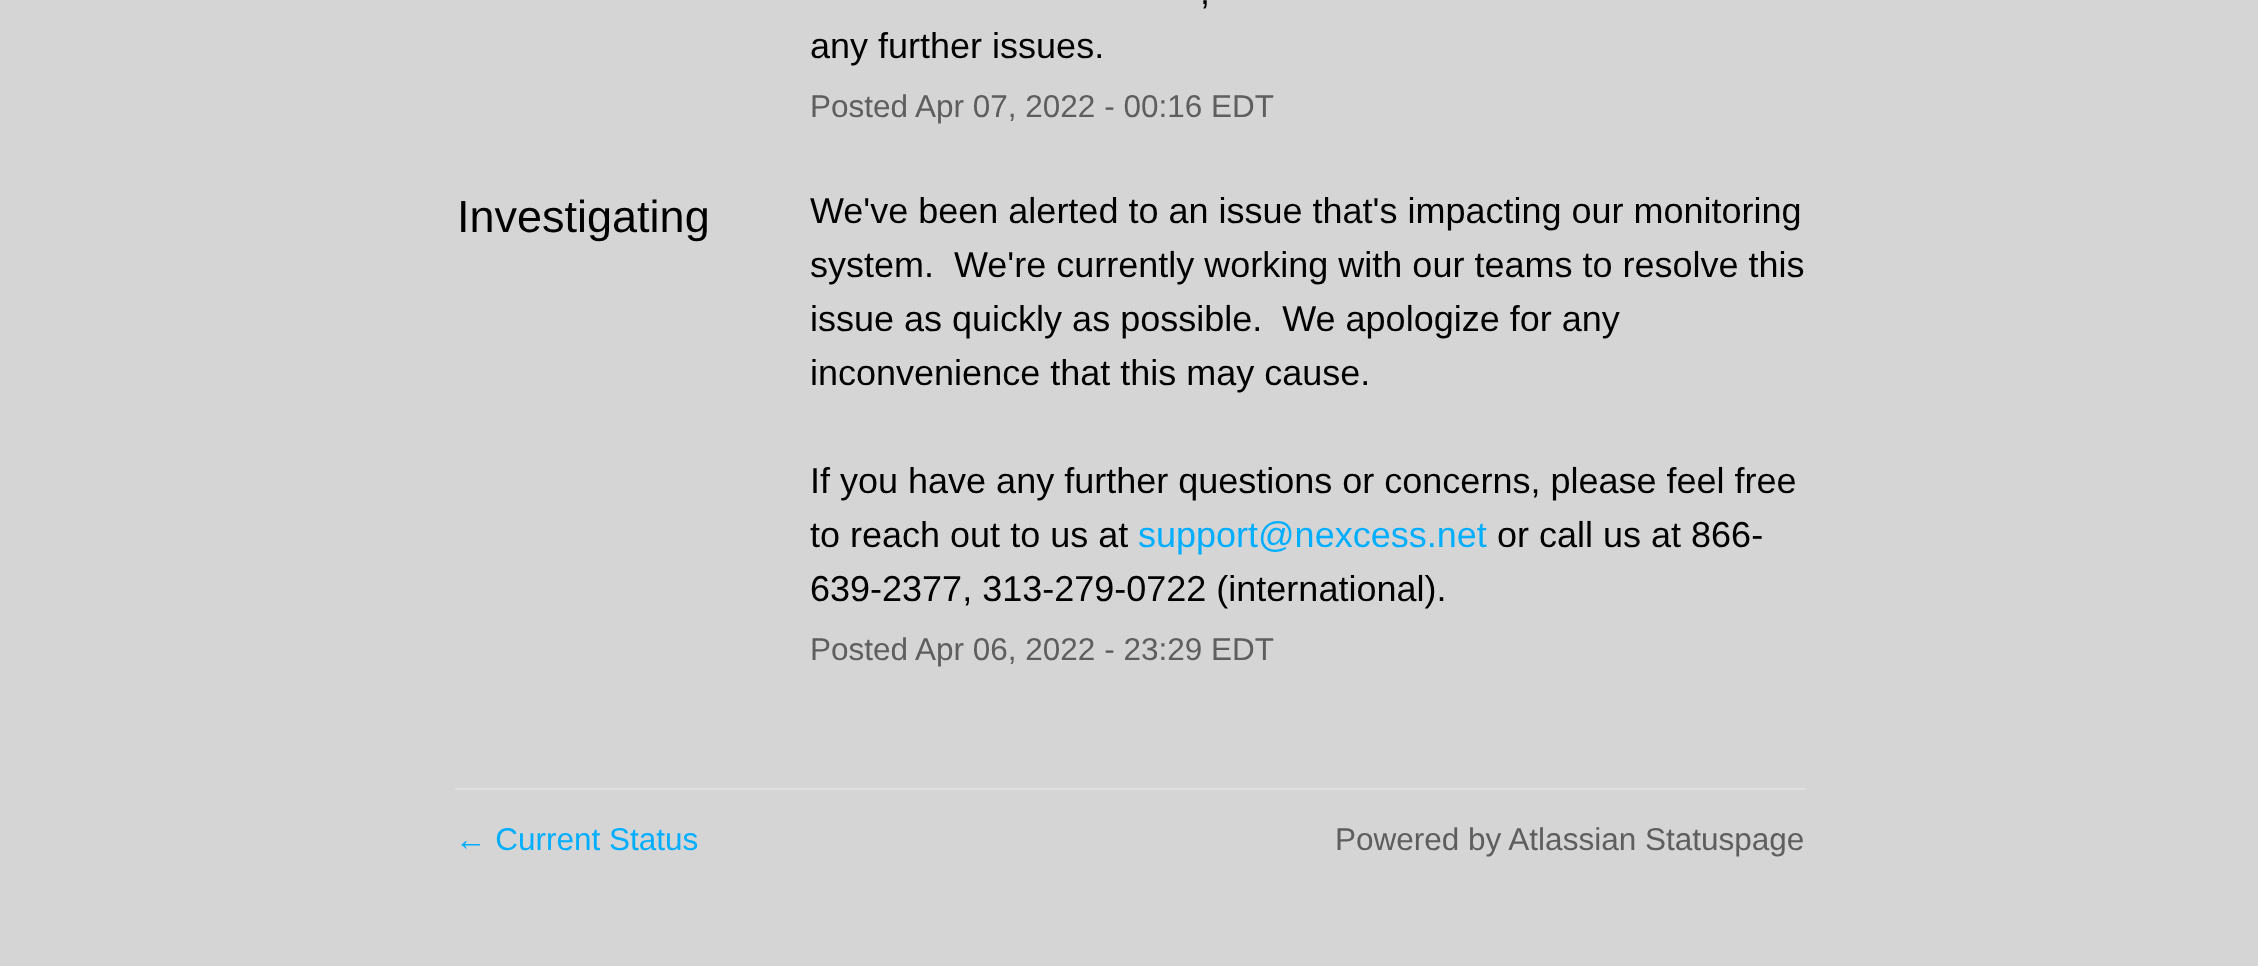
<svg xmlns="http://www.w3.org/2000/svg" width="2258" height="966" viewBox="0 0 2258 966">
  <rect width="100%" height="100%" fill="rgb(213,213,213)"/>
  <g font-family="Liberation Sans" font-size="36" fill="rgb(0,0,0)">
    <text x="1200" y="4">,</text>
    <text x="810" y="58">any further issues.</text>
  </g>
  <g font-family="Liberation Sans" font-size="31.5" fill="rgb(94,94,94)">
    <text x="810" y="117">Posted</text>
    <text x="915" y="117">Apr 07, 2022 - 00:16 EDT</text>
  </g>
  <text x="457" y="232" font-family="Liberation Sans" font-size="45" fill="rgb(0,0,0)">Investigating</text>
  <g font-family="Liberation Sans" font-size="36" fill="rgb(0,0,0)">
    <text xml:space="preserve"><tspan x="810" y="223">We've been alerted to an issue that's impacting our monitoring</tspan><tspan x="810" y="277">system.  We're currently working with our teams to resolve this</tspan><tspan x="810" y="331">issue as quickly as possible.  We apologize for any</tspan><tspan x="810" y="385">inconvenience that this may cause.</tspan></text>
    <text>
      <tspan x="810" y="493">If you have any further questions or concerns, please feel free</tspan>
      <tspan x="810" y="547">to reach out to us at</tspan>
    </text>
  </g>
  <text x="1138" y="547" font-family="Liberation Sans" font-size="36" fill="rgb(0,174,255)">support@nexcess.net</text>
  <g font-family="Liberation Sans" font-size="36" fill="rgb(0,0,0)">
    <text x="1497" y="547">or call us at 866-</text>
    <text x="810" y="601">639-2377, 313-279-0722 (international).</text>
  </g>
  <g font-family="Liberation Sans" font-size="31.5" fill="rgb(94,94,94)">
    <text x="810" y="660">Posted</text>
    <text x="915" y="660">Apr 06, 2022 - 23:29 EDT</text>
  </g>
  <rect x="455" y="788" width="1350" height="2" fill="rgb(224,224,224)"/>
  <text x="455" y="850" font-family="Liberation Sans" font-size="31.5" fill="rgb(0,174,255)">← Current Status</text>
  <text x="1335" y="850" font-family="Liberation Sans" font-size="31.5" fill="rgb(94,94,94)">Powered by Atlassian Statuspage</text>
</svg>
